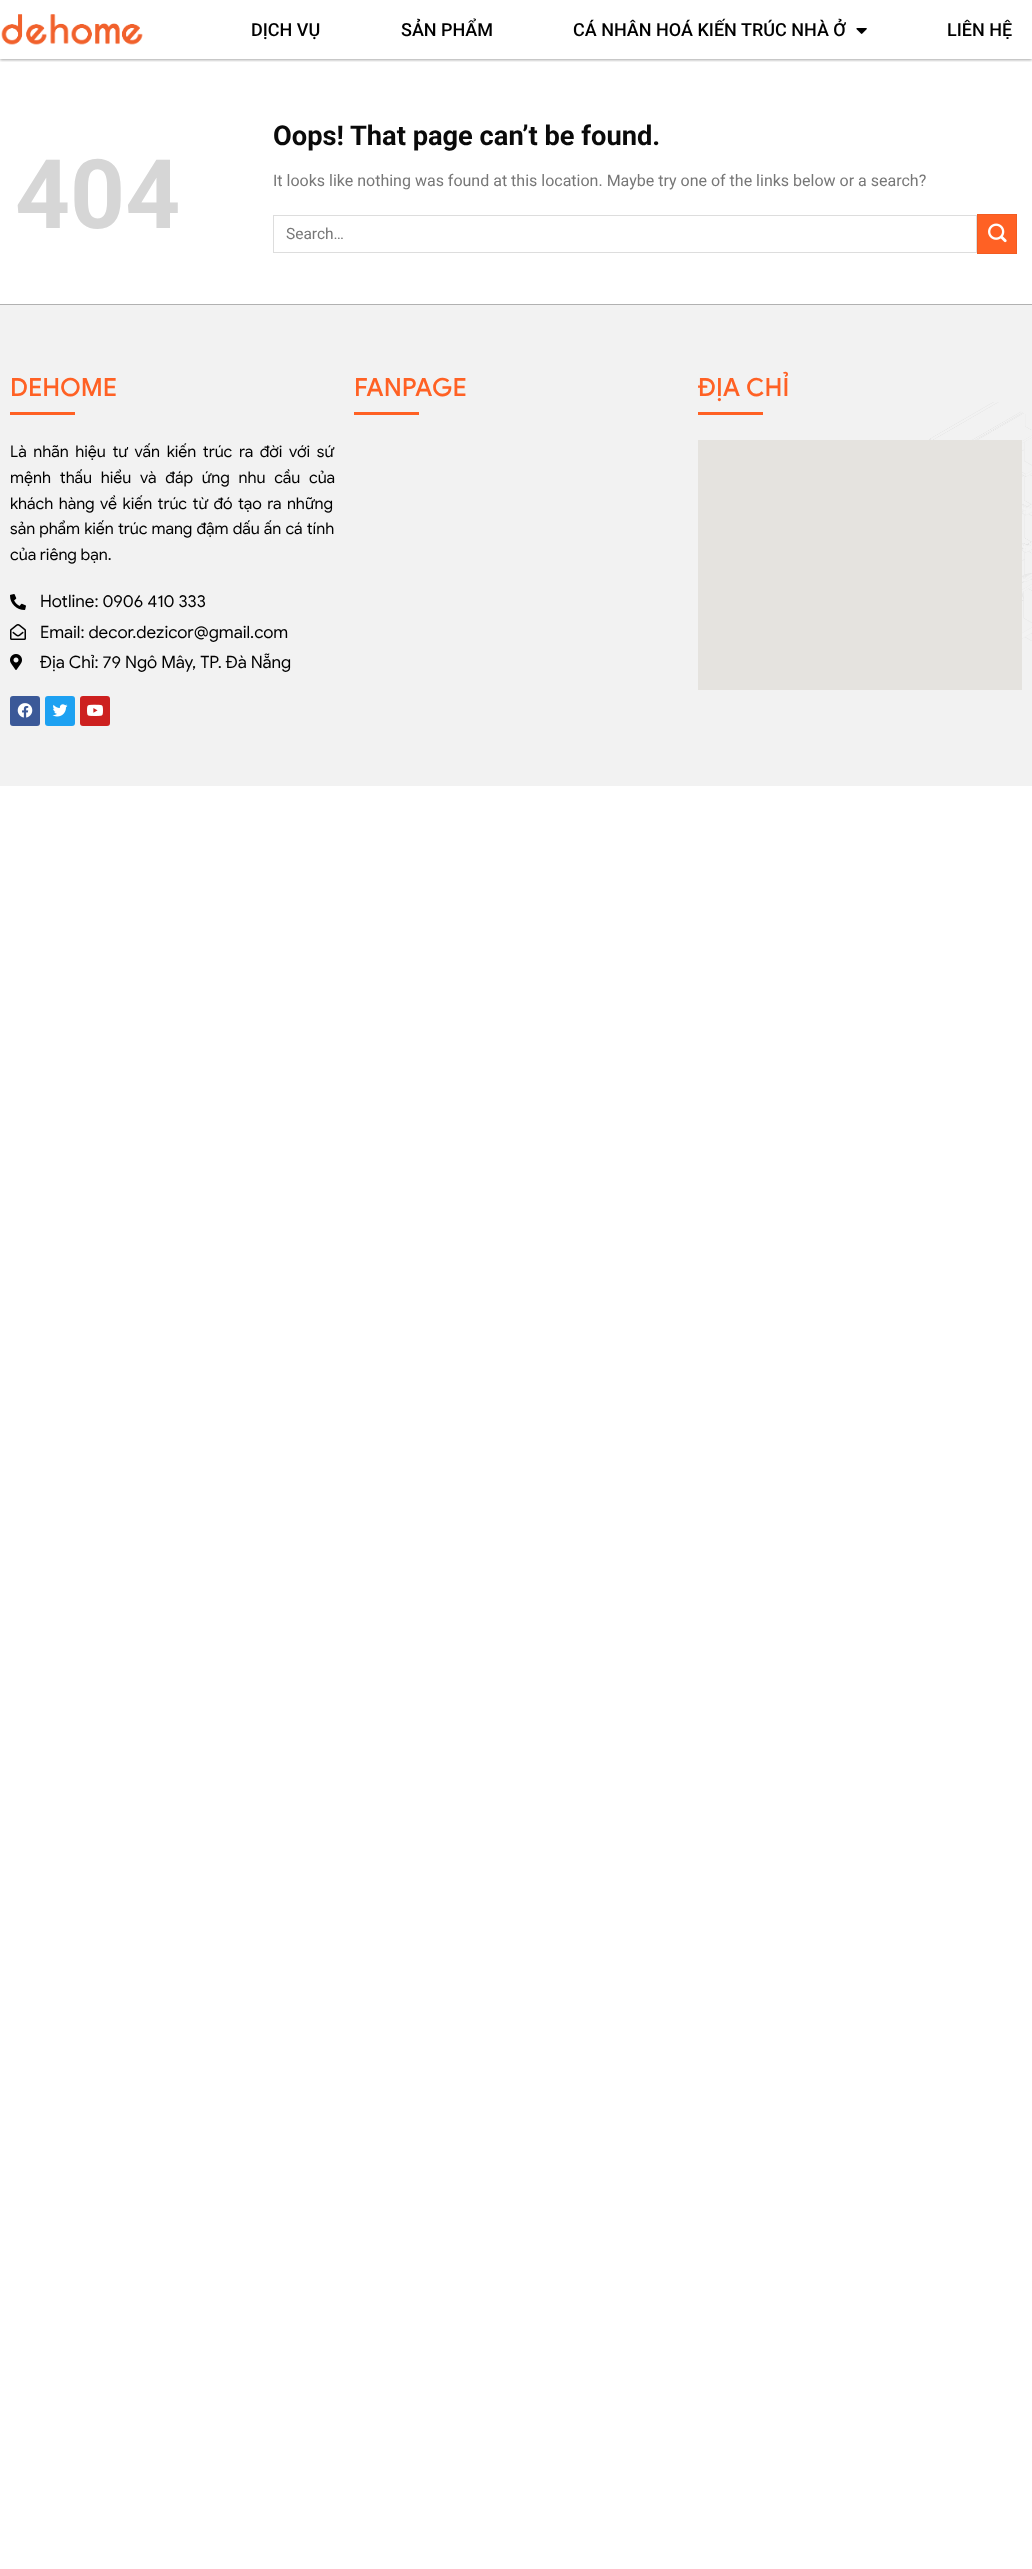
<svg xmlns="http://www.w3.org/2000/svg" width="1032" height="2569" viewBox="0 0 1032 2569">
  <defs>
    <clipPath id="clip1"><rect x="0" y="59" width="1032" height="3"/></clipPath>
  </defs>
  <rect width="100%" height="100%" fill="rgb(255,255,255)"/>
  <g clip-path="url(#clip1)">
    <rect x="0" y="1" width="1032" height="59" fill="rgba(0,0,0,0.35)" filter="blur(1.5px)"/>
  </g>
  <image x="1" y="14" width="142" height="31" href="pic1.png"/>
  <g font-family="Roboto" font-size="18" font-weight="500" fill="rgb(0,0,0)">
    <text x="251" y="36">DỊCH VỤ</text>
    <text x="401" y="36">SẢN PHẨM</text>
    <text x="573" y="36">CÁ NHÂN HOÁ KIẾN TRÚC NHÀ Ở</text>
  </g>
  <image x="856" y="28" width="11" height="6" href="pic2.png"/>
  <text x="947" y="36" font-family="Roboto" font-size="18" font-weight="500" fill="rgb(0,0,0)">LIÊN HỆ</text>
  <text x="15" y="228" font-family="Roboto" font-size="96" font-weight="bold" fill="rgb(214,214,214)">404</text>
  <text x="273" y="145" font-family="Roboto" font-size="27.25" font-weight="bold" fill="rgb(10,10,10)">Oops! That page can’t be found.</text>
  <text x="273" y="186" font-family="Roboto" font-size="16" fill="rgb(119,119,119)">It looks like nothing was found at this location. Maybe try one of the links below or a search?</text>
  <rect x="273.5" y="215.5" width="703" height="37" fill="none" stroke="rgb(221,221,221)"/>
  <text x="286" y="239" font-family="Roboto" font-size="15.5" fill="rgb(119,119,119)">Search…</text>
  <rect x="977.5" y="214.5" width="39" height="39" fill="rgb(255,97,36)" stroke="rgb(242,92,34)"/>
  <image x="988" y="223" width="19" height="20" href="pic3.png"/>
  <rect x="0" y="305" width="1032" height="481" fill="rgb(242,242,242)"/>
  <image x="929" y="402" width="103" height="239" href="pic4.png"/>
  <rect x="0" y="304" width="1032" height="1" fill="rgb(177,177,177)"/>
  <text x="10" y="396" font-family="Google Sans" font-size="25" font-weight="500" fill="rgb(255,97,36)">DEHOME</text>
  <rect x="10" y="412" width="65" height="3" fill="rgb(255,97,36)"/>
  <g font-family="Google Sans" font-size="16" fill="rgb(0,0,0)">
    <text>
      <tspan x="10" y="457" word-spacing="2.9">Là nhãn hiệu tư vấn kiến trúc ra đời với sứ</tspan>
      <tspan x="10" y="483" word-spacing="5">mệnh thấu hiểu và đáp ứng nhu cầu của</tspan>
      <tspan x="10" y="509" word-spacing="1.75">khách hàng về kiến trúc từ đó tạo ra những</tspan>
      <tspan x="10" y="534" word-spacing="0.4">sản phẩm kiến trúc mang đậm dấu ấn cá tính</tspan>
      <tspan x="10" y="560">của riêng bạn.</tspan>
    </text>
  </g>
  <image x="10" y="594" width="16" height="16" href="pic5.png"/>
  <text x="40" y="607" font-family="Google Sans" font-size="17" fill="rgb(0,0,0)">Hotline: 0906 410 333</text>
  <image x="10" y="624" width="16" height="16" href="pic6.png"/>
  <text x="40" y="638" font-family="Google Sans" font-size="17" fill="rgb(0,0,0)">Email: decor.dezicor@gmail.com</text>
  <image x="10" y="654" width="12" height="16" href="pic7.png"/>
  <text x="40" y="668" font-family="Google Sans" font-size="17" fill="rgb(0,0,0)">Địa Chỉ: 79 Ngô Mây, TP. Đà Nẵng</text>
  <rect x="10" y="696" width="30" height="30" rx="3" fill="rgb(59,89,152)"/>
  <image x="17" y="703" width="16" height="15" href="pic8.png"/>
  <rect x="45" y="696" width="30" height="30" rx="3" fill="rgb(29,161,242)"/>
  <image x="52" y="704" width="16" height="13" href="pic9.png"/>
  <rect x="80" y="696" width="30" height="30" rx="3" fill="rgb(205,32,31)"/>
  <image x="87" y="704" width="16" height="12" href="pic10.png"/>
  <text x="354" y="396" font-family="Google Sans" font-size="25" font-weight="500" fill="rgb(255,97,36)">FANPAGE</text>
  <rect x="354" y="412" width="65" height="3" fill="rgb(255,97,36)"/>
  <text x="698" y="396" font-family="Google Sans" font-size="25" font-weight="500" fill="rgb(255,97,36)">ĐỊA CHỈ</text>
  <rect x="698" y="412" width="65" height="3" fill="rgb(255,97,36)"/>
  <rect x="698" y="440" width="324" height="250" fill="rgb(229,227,223)"/>
</svg>
